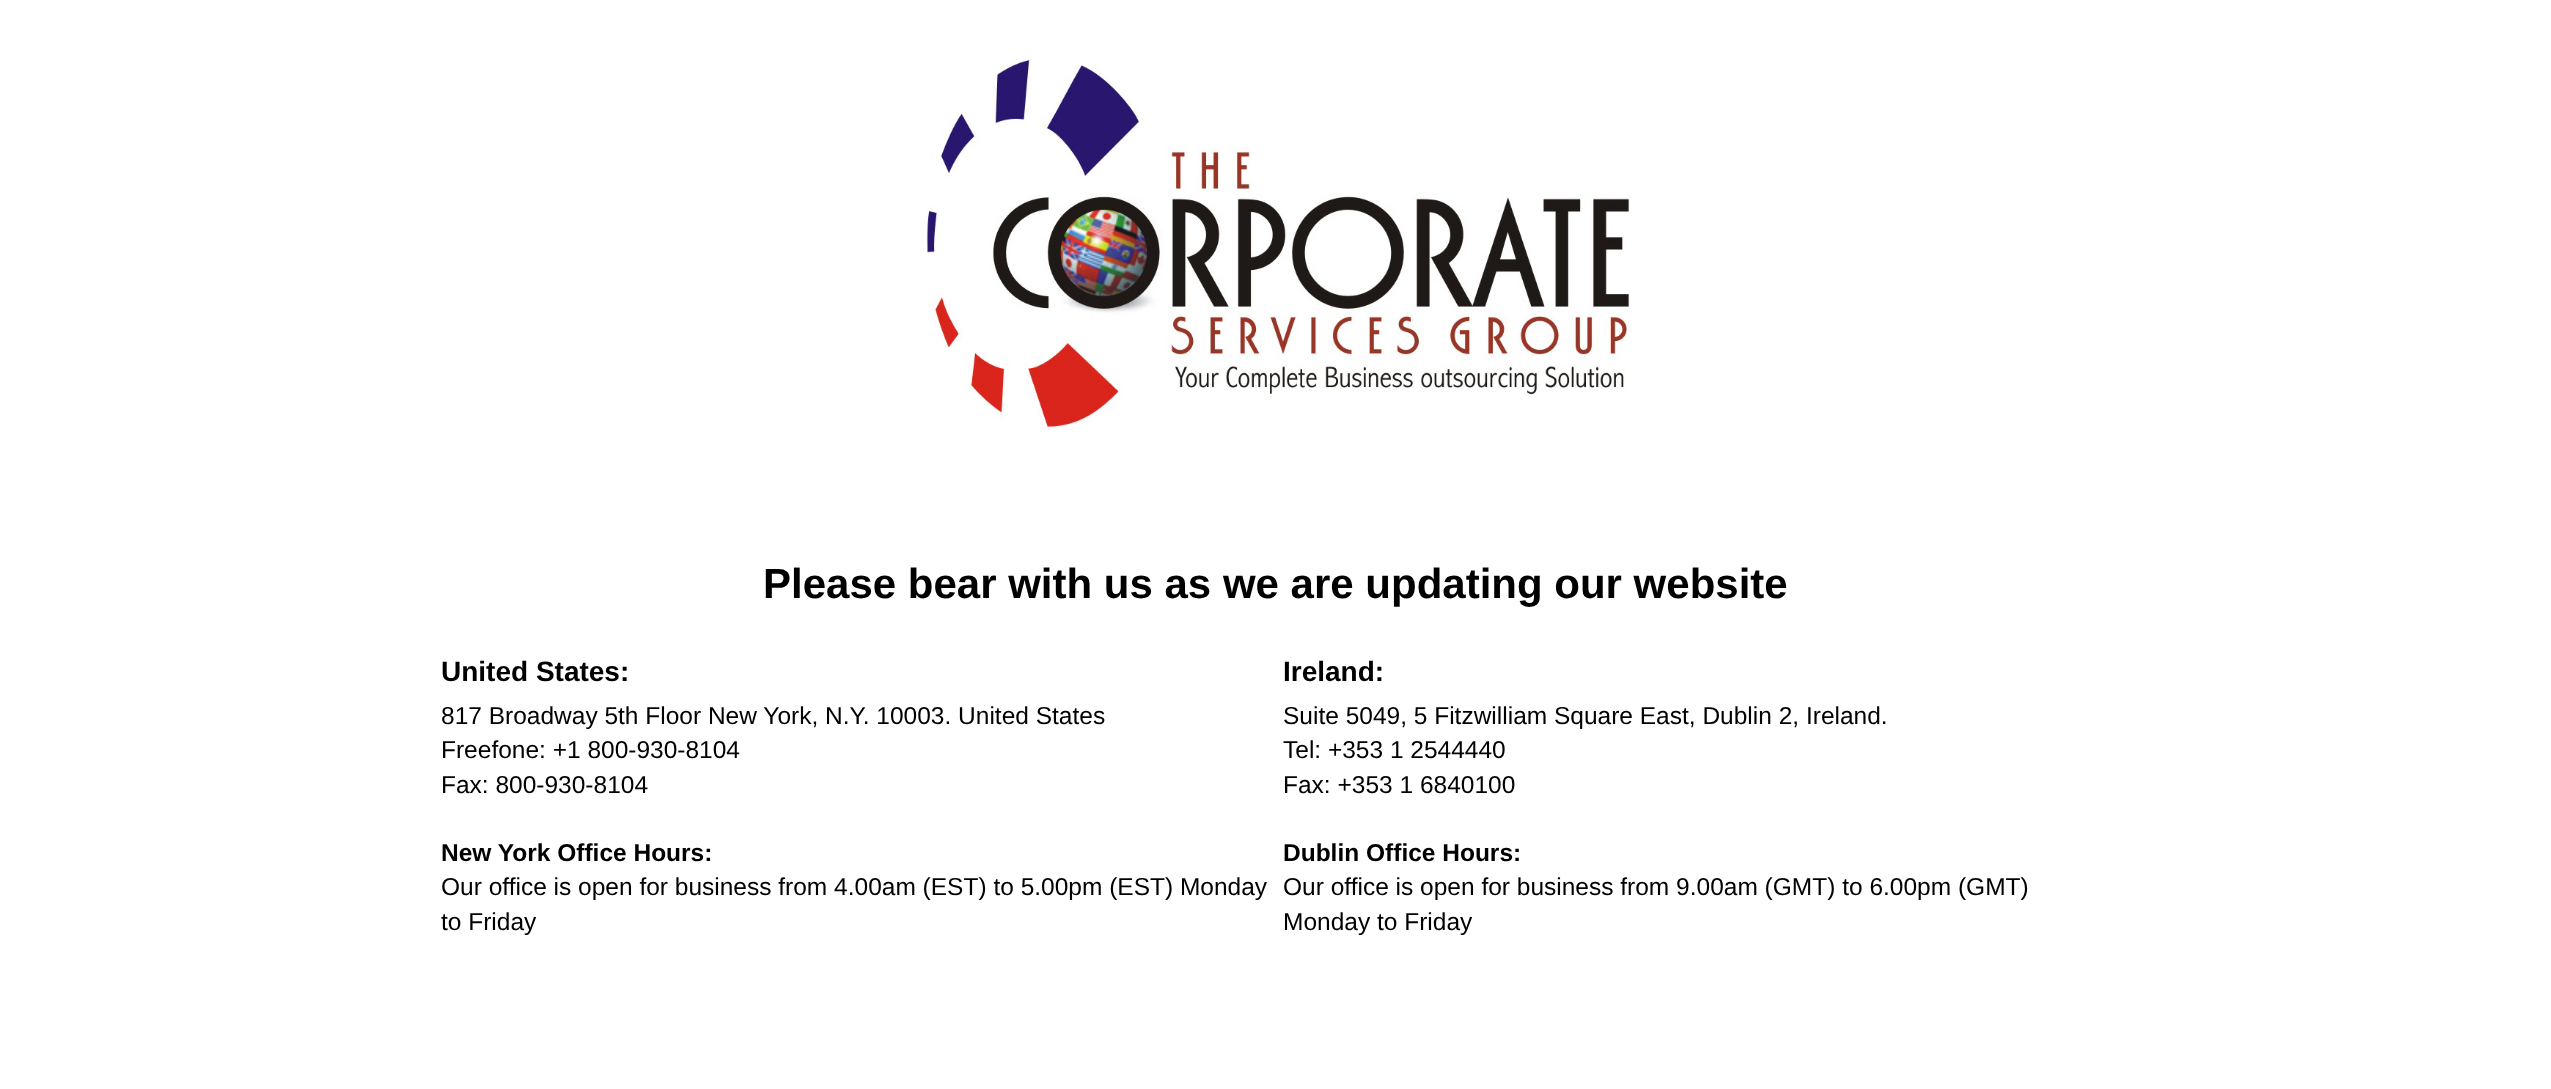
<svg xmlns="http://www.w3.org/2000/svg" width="2551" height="1089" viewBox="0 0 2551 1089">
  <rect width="100%" height="100%" fill="rgb(255,255,255)"/>
  <image x="926" y="59" width="705" height="370" href="pic1.png"/>
  <text x="763" y="598" font-family="Liberation Sans" font-size="42" font-weight="bold" fill="rgb(0,0,0)">Please bear with us as we are updating our website</text>
  <g font-family="Liberation Sans" font-size="28" font-weight="bold" fill="rgb(0,0,0)">
    <text x="441" y="681">United States:</text>
    <text x="1283" y="681">Ireland:</text>
  </g>
  <g font-family="Liberation Sans" font-size="24.5" fill="rgb(0,0,0)">
    <text>
      <tspan x="441" y="724">817 Broadway 5th Floor New York, N.Y. 10003. United States</tspan>
      <tspan x="441" y="758">Freefone: +1 800-930-8104</tspan>
      <tspan x="441" y="793">Fax: 800-930-8104</tspan>
    </text>
  </g>
  <text x="441" y="861" font-family="Liberation Sans" font-size="24.5" font-weight="bold" fill="rgb(0,0,0)">New York Office Hours:</text>
  <g font-family="Liberation Sans" font-size="24.5" fill="rgb(0,0,0)">
    <text>
      <tspan x="441" y="895">Our office is open for business from 4.00am (EST) to 5.00pm (EST) Monday</tspan>
      <tspan x="441" y="930">to Friday</tspan>
    </text>
    <text>
      <tspan x="1283" y="724">Suite 5049, 5 Fitzwilliam Square East, Dublin 2, Ireland.</tspan>
      <tspan x="1283" y="758">Tel: +353 1 2544440</tspan>
      <tspan x="1283" y="793">Fax: +353 1 6840100</tspan>
    </text>
  </g>
  <text x="1283" y="861" font-family="Liberation Sans" font-size="24.5" font-weight="bold" fill="rgb(0,0,0)">Dublin Office Hours:</text>
  <g font-family="Liberation Sans" font-size="24.5" fill="rgb(0,0,0)">
    <text>
      <tspan x="1283" y="895">Our office is open for business from 9.00am (GMT) to 6.00pm (GMT)</tspan>
      <tspan x="1283" y="930">Monday to Friday</tspan>
    </text>
  </g>
</svg>
